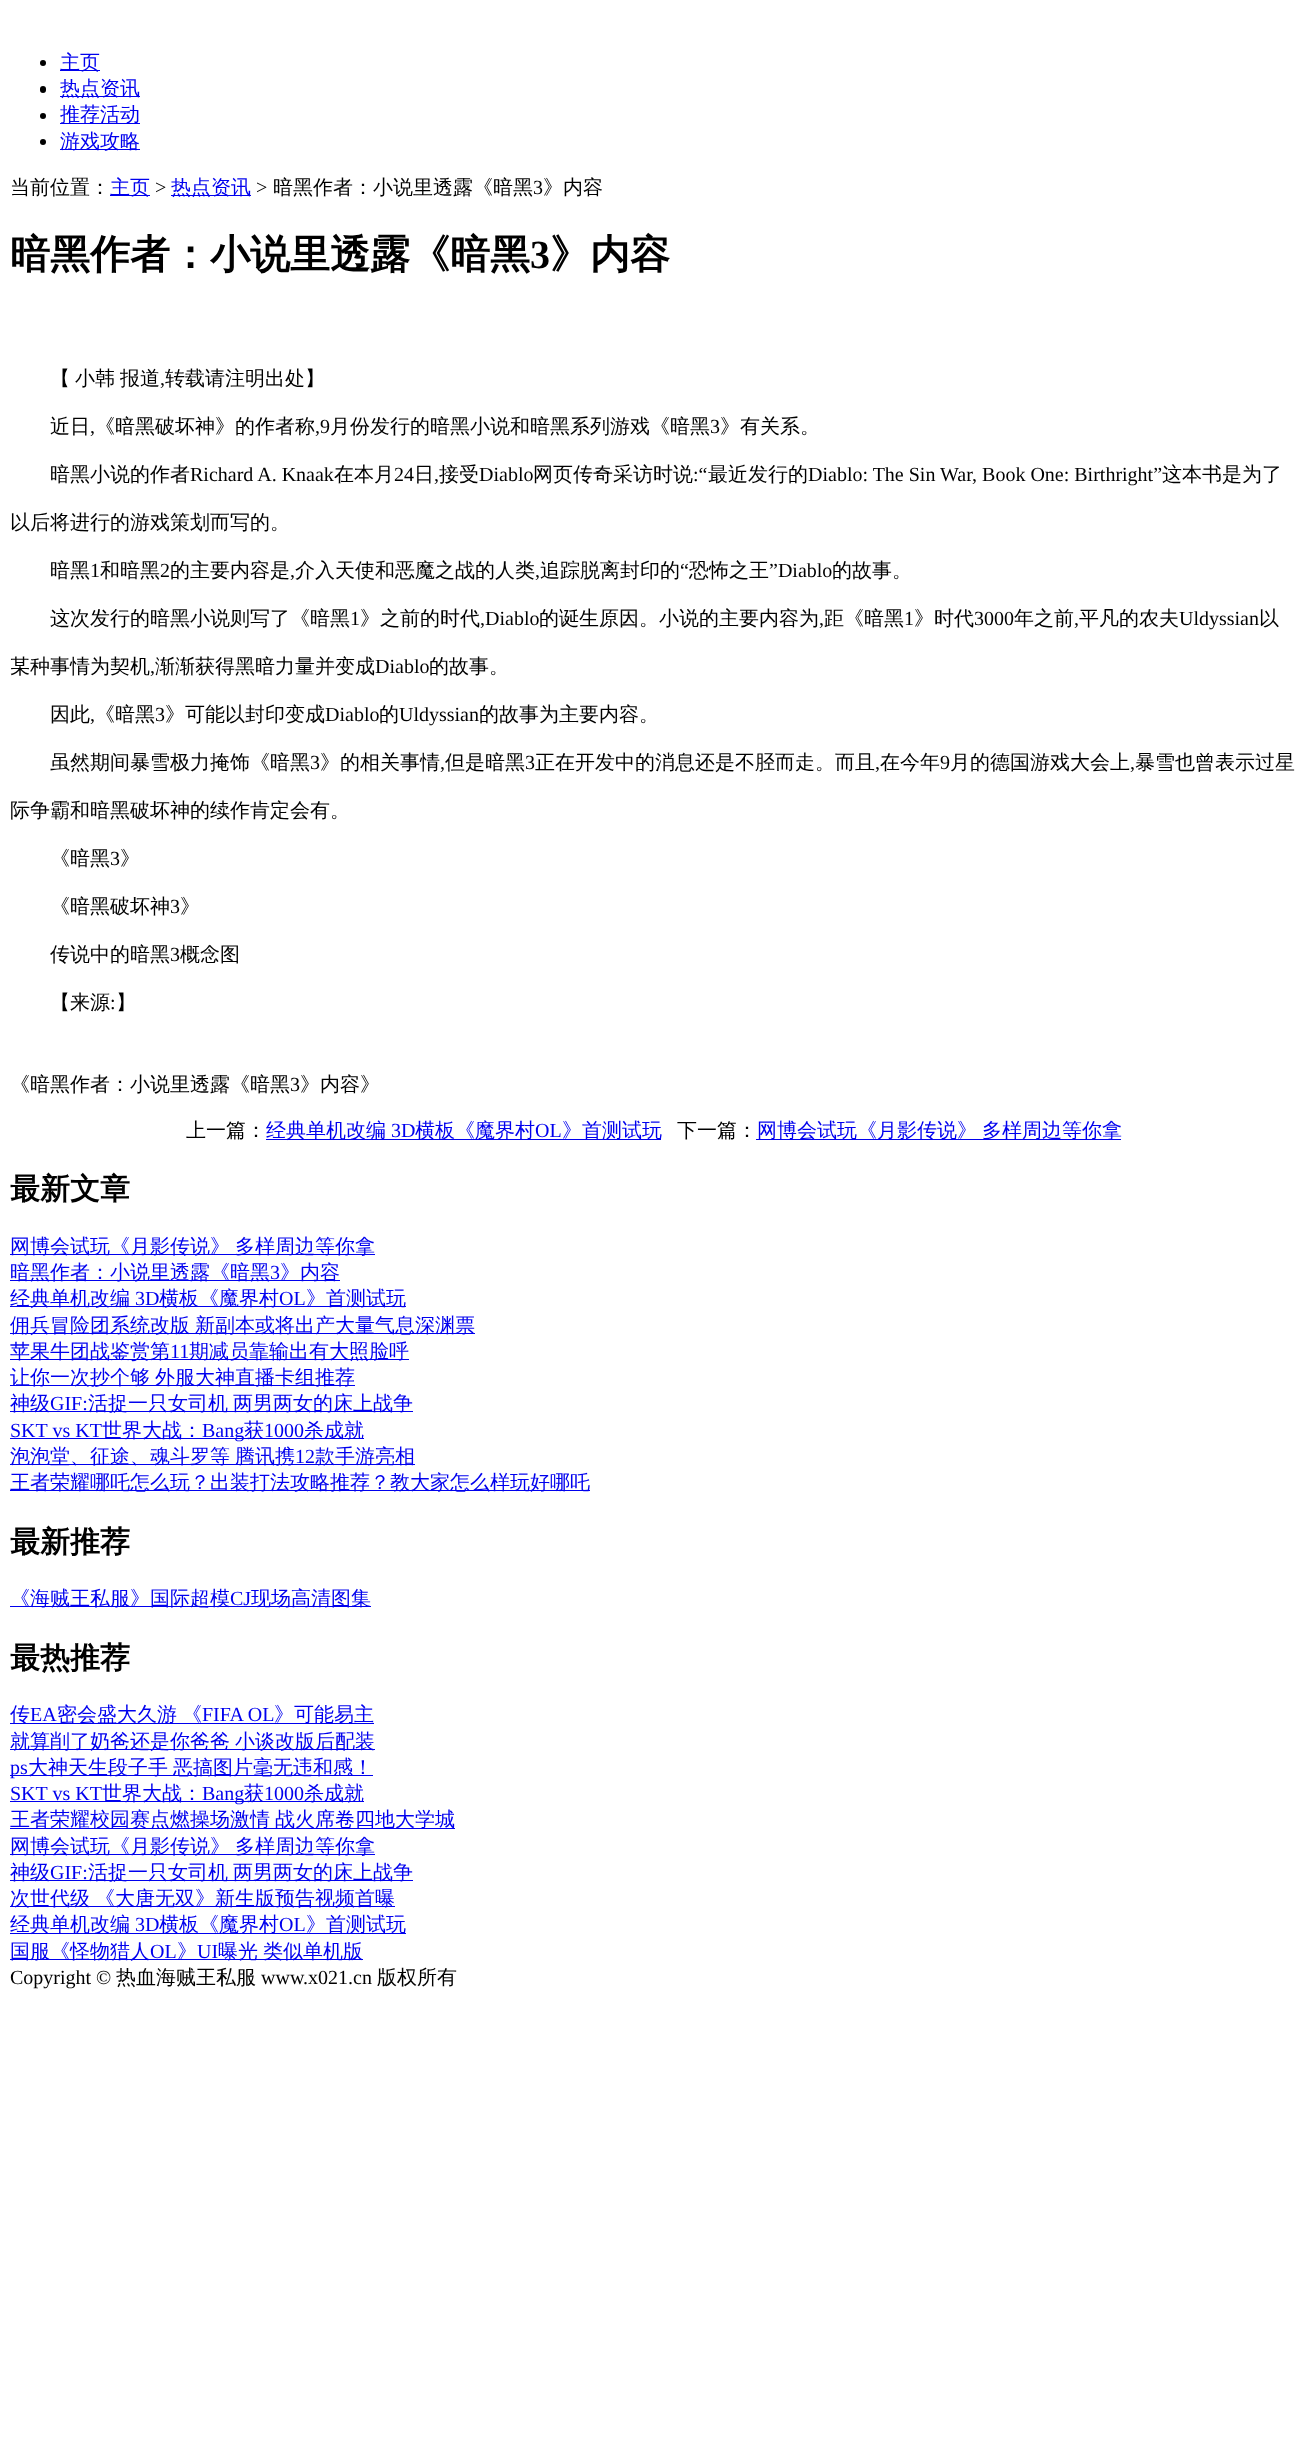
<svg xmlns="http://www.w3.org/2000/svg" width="1307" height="2463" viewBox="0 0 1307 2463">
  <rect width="100%" height="100%" fill="rgb(255,255,255)"/>
  <circle cx="43" cy="63" r="3" fill="rgb(0,0,0)"/>
  <rect x="60" y="70" width="40" height="1" fill="rgb(0,0,238)"/>
  <text x="60" y="69" font-family="WenQuanYi Zen Hei" font-size="20" font-weight="500" fill="rgb(0,0,238)">主页</text>
  <rect x="40" y="86" width="6" height="7" rx="3" fill="rgb(0,0,0)"/>
  <rect x="60" y="96" width="80" height="1" fill="rgb(0,0,238)"/>
  <text x="60" y="95" font-family="WenQuanYi Zen Hei" font-size="20" font-weight="500" fill="rgb(0,0,238)">热点资讯</text>
  <circle cx="43" cy="116" r="3" fill="rgb(0,0,0)"/>
  <rect x="60" y="123" width="80" height="1" fill="rgb(0,0,238)"/>
  <text x="60" y="121" font-family="WenQuanYi Zen Hei" font-size="20" font-weight="500" fill="rgb(0,0,238)">推荐活动</text>
  <circle cx="43" cy="142" r="3" fill="rgb(0,0,0)"/>
  <rect x="60" y="149" width="80" height="1" fill="rgb(0,0,238)"/>
  <text x="60" y="148" font-family="WenQuanYi Zen Hei" font-size="20" font-weight="500" fill="rgb(0,0,238)">游戏攻略</text>
  <text x="10" y="194" font-family="WenQuanYi Zen Hei" font-size="20" font-weight="500" fill="rgb(0,0,0)">当前位置：</text>
  <rect x="110" y="195" width="40" height="1" fill="rgb(0,0,238)"/>
  <text x="110" y="194" font-family="WenQuanYi Zen Hei" font-size="20" font-weight="500" fill="rgb(0,0,238)">主页</text>
  <text x="155" y="194" font-family="Liberation Serif" font-size="20" fill="rgb(0,0,0)">&gt;</text>
  <rect x="171" y="195" width="80" height="1" fill="rgb(0,0,238)"/>
  <text x="171" y="194" font-family="WenQuanYi Zen Hei" font-size="20" font-weight="500" fill="rgb(0,0,238)">热点资讯</text>
  <text x="256" y="194" font-family="Liberation Serif" font-size="20" fill="rgb(0,0,0)">&gt;</text>
  <text x="273" y="194" font-family="WenQuanYi Zen Hei" font-size="20" font-weight="500" fill="rgb(0,0,0)">暗黑作者：小说里透露《暗黑</text>
  <text x="533" y="194" font-family="Liberation Serif" font-size="20" fill="rgb(0,0,0)">3</text>
  <text x="543" y="194" font-family="WenQuanYi Zen Hei" font-size="20" font-weight="500" fill="rgb(0,0,0)">》内容</text>
  <text x="10" y="268" font-family="WenQuanYi Zen Hei" font-size="40" font-weight="bold" fill="rgb(0,0,0)">暗黑作者：小说里透露《暗黑</text>
  <text x="530" y="268" font-family="Liberation Serif" font-size="40" font-weight="bold" fill="rgb(0,0,0)">3</text>
  <text x="550" y="268" font-family="WenQuanYi Zen Hei" font-size="40" font-weight="bold" fill="rgb(0,0,0)">》内容</text>
  <text x="50" y="385" word-spacing="-1" font-family="WenQuanYi Zen Hei" font-size="20" font-weight="500" fill="rgb(0,0,0)">【 小韩 报道</text>
  <text x="160" y="385" font-family="Liberation Serif" font-size="20" fill="rgb(0,0,0)">,</text>
  <g font-family="WenQuanYi Zen Hei" font-size="20" font-weight="500" fill="rgb(0,0,0)">
    <text x="165" y="385">转载请注明出处】</text>
    <text x="50" y="433">近日</text>
  </g>
  <text x="90" y="433" font-family="Liberation Serif" font-size="20" fill="rgb(0,0,0)">,</text>
  <text x="95" y="433" font-family="WenQuanYi Zen Hei" font-size="20" font-weight="500" fill="rgb(0,0,0)">《暗黑破坏神》的作者称</text>
  <text x="315" y="433" font-family="Liberation Serif" font-size="20" fill="rgb(0,0,0)">,9</text>
  <text x="330" y="433" font-family="WenQuanYi Zen Hei" font-size="20" font-weight="500" fill="rgb(0,0,0)">月份发行的暗黑小说和暗黑系列游戏《暗黑</text>
  <text x="710" y="433" font-family="Liberation Serif" font-size="20" fill="rgb(0,0,0)">3</text>
  <g font-family="WenQuanYi Zen Hei" font-size="20" font-weight="500" fill="rgb(0,0,0)">
    <text x="720" y="433">》有关系。</text>
    <text x="50" y="481">暗黑小说的作者</text>
  </g>
  <text x="190" y="481" font-family="Liberation Serif" font-size="20" fill="rgb(0,0,0)">Richard A. Knaak</text>
  <text x="334" y="481" font-family="WenQuanYi Zen Hei" font-size="20" font-weight="500" fill="rgb(0,0,0)">在本月</text>
  <text x="394" y="481" font-family="Liberation Serif" font-size="20" fill="rgb(0,0,0)">24</text>
  <text x="414" y="481" font-family="WenQuanYi Zen Hei" font-size="20" font-weight="500" fill="rgb(0,0,0)">日</text>
  <text x="434" y="481" font-family="Liberation Serif" font-size="20" fill="rgb(0,0,0)">,</text>
  <text x="439" y="481" font-family="WenQuanYi Zen Hei" font-size="20" font-weight="500" fill="rgb(0,0,0)">接受</text>
  <text x="479" y="481" font-family="Liberation Serif" font-size="20" fill="rgb(0,0,0)">Diablo</text>
  <text x="533" y="481" font-family="WenQuanYi Zen Hei" font-size="20" font-weight="500" fill="rgb(0,0,0)">网页传奇采访时说</text>
  <text x="693" y="481" font-family="Liberation Serif" font-size="20" fill="rgb(0,0,0)">:“</text>
  <text x="708" y="481" font-family="WenQuanYi Zen Hei" font-size="20" font-weight="500" fill="rgb(0,0,0)">最近发行的</text>
  <text x="808" y="481" font-family="Liberation Serif" font-size="20" fill="rgb(0,0,0)">Diablo: The Sin War, Book One: Birthright”</text>
  <g font-family="WenQuanYi Zen Hei" font-size="20" font-weight="500" fill="rgb(0,0,0)">
    <text x="1162" y="481">这本书是为了</text>
    <text x="10" y="529">以后将进行的游戏策划而写的。</text>
    <text x="50" y="577">暗黑</text>
  </g>
  <text x="90" y="577" font-family="Liberation Serif" font-size="20" fill="rgb(0,0,0)">1</text>
  <text x="100" y="577" font-family="WenQuanYi Zen Hei" font-size="20" font-weight="500" fill="rgb(0,0,0)">和暗黑</text>
  <text x="160" y="577" font-family="Liberation Serif" font-size="20" fill="rgb(0,0,0)">2</text>
  <text x="170" y="577" font-family="WenQuanYi Zen Hei" font-size="20" font-weight="500" fill="rgb(0,0,0)">的主要内容是</text>
  <text x="290" y="577" font-family="Liberation Serif" font-size="20" fill="rgb(0,0,0)">,</text>
  <text x="295" y="577" font-family="WenQuanYi Zen Hei" font-size="20" font-weight="500" fill="rgb(0,0,0)">介入天使和恶魔之战的人类</text>
  <text x="535" y="577" font-family="Liberation Serif" font-size="20" fill="rgb(0,0,0)">,</text>
  <text x="540" y="577" font-family="WenQuanYi Zen Hei" font-size="20" font-weight="500" fill="rgb(0,0,0)">追踪脱离封印的</text>
  <text x="680" y="577" font-family="Liberation Serif" font-size="20" fill="rgb(0,0,0)">“</text>
  <text x="689" y="577" font-family="WenQuanYi Zen Hei" font-size="20" font-weight="500" fill="rgb(0,0,0)">恐怖之王</text>
  <text x="769" y="577" font-family="Liberation Serif" font-size="20" fill="rgb(0,0,0)">”Diablo</text>
  <g font-family="WenQuanYi Zen Hei" font-size="20" font-weight="500" fill="rgb(0,0,0)">
    <text x="832" y="577">的故事。</text>
    <text x="50" y="625">这次发行的暗黑小说则写了《暗黑</text>
  </g>
  <text x="350" y="625" font-family="Liberation Serif" font-size="20" fill="rgb(0,0,0)">1</text>
  <text x="360" y="625" font-family="WenQuanYi Zen Hei" font-size="20" font-weight="500" fill="rgb(0,0,0)">》之前的时代</text>
  <text x="480" y="625" font-family="Liberation Serif" font-size="20" fill="rgb(0,0,0)">,Diablo</text>
  <text x="539" y="625" font-family="WenQuanYi Zen Hei" font-size="20" font-weight="500" fill="rgb(0,0,0)">的诞生原因。小说的主要内容为</text>
  <text x="819" y="625" font-family="Liberation Serif" font-size="20" fill="rgb(0,0,0)">,</text>
  <text x="824" y="625" font-family="WenQuanYi Zen Hei" font-size="20" font-weight="500" fill="rgb(0,0,0)">距《暗黑</text>
  <text x="904" y="625" font-family="Liberation Serif" font-size="20" fill="rgb(0,0,0)">1</text>
  <text x="914" y="625" font-family="WenQuanYi Zen Hei" font-size="20" font-weight="500" fill="rgb(0,0,0)">》时代</text>
  <text x="974" y="625" font-family="Liberation Serif" font-size="20" fill="rgb(0,0,0)">3000</text>
  <text x="1014" y="625" font-family="WenQuanYi Zen Hei" font-size="20" font-weight="500" fill="rgb(0,0,0)">年之前</text>
  <text x="1074" y="625" font-family="Liberation Serif" font-size="20" fill="rgb(0,0,0)">,</text>
  <text x="1079" y="625" font-family="WenQuanYi Zen Hei" font-size="20" font-weight="500" fill="rgb(0,0,0)">平凡的农夫</text>
  <text x="1179" y="625" font-family="Liberation Serif" font-size="20" fill="rgb(0,0,0)">Uldyssian</text>
  <g font-family="WenQuanYi Zen Hei" font-size="20" font-weight="500" fill="rgb(0,0,0)">
    <text x="1259" y="625">以</text>
    <text x="10" y="673">某种事情为契机</text>
  </g>
  <text x="150" y="673" font-family="Liberation Serif" font-size="20" fill="rgb(0,0,0)">,</text>
  <text x="155" y="673" font-family="WenQuanYi Zen Hei" font-size="20" font-weight="500" fill="rgb(0,0,0)">渐渐获得黑暗力量并变成</text>
  <text x="375" y="673" font-family="Liberation Serif" font-size="20" fill="rgb(0,0,0)">Diablo</text>
  <g font-family="WenQuanYi Zen Hei" font-size="20" font-weight="500" fill="rgb(0,0,0)">
    <text x="429" y="673">的故事。</text>
    <text x="50" y="721">因此</text>
  </g>
  <text x="90" y="721" font-family="Liberation Serif" font-size="20" fill="rgb(0,0,0)">,</text>
  <text x="95" y="721" font-family="WenQuanYi Zen Hei" font-size="20" font-weight="500" fill="rgb(0,0,0)">《暗黑</text>
  <text x="155" y="721" font-family="Liberation Serif" font-size="20" fill="rgb(0,0,0)">3</text>
  <text x="165" y="721" font-family="WenQuanYi Zen Hei" font-size="20" font-weight="500" fill="rgb(0,0,0)">》可能以封印变成</text>
  <text x="325" y="721" font-family="Liberation Serif" font-size="20" fill="rgb(0,0,0)">Diablo</text>
  <text x="379" y="721" font-family="WenQuanYi Zen Hei" font-size="20" font-weight="500" fill="rgb(0,0,0)">的</text>
  <text x="399" y="721" font-family="Liberation Serif" font-size="20" fill="rgb(0,0,0)">Uldyssian</text>
  <g font-family="WenQuanYi Zen Hei" font-size="20" font-weight="500" fill="rgb(0,0,0)">
    <text x="479" y="721">的故事为主要内容。</text>
    <text x="50" y="769">虽然期间暴雪极力掩饰《暗黑</text>
  </g>
  <text x="310" y="769" font-family="Liberation Serif" font-size="20" fill="rgb(0,0,0)">3</text>
  <text x="320" y="769" font-family="WenQuanYi Zen Hei" font-size="20" font-weight="500" fill="rgb(0,0,0)">》的相关事情</text>
  <text x="440" y="769" font-family="Liberation Serif" font-size="20" fill="rgb(0,0,0)">,</text>
  <text x="445" y="769" font-family="WenQuanYi Zen Hei" font-size="20" font-weight="500" fill="rgb(0,0,0)">但是暗黑</text>
  <text x="525" y="769" font-family="Liberation Serif" font-size="20" fill="rgb(0,0,0)">3</text>
  <text x="535" y="769" font-family="WenQuanYi Zen Hei" font-size="20" font-weight="500" fill="rgb(0,0,0)">正在开发中的消息还是不胫而走。而且</text>
  <text x="875" y="769" font-family="Liberation Serif" font-size="20" fill="rgb(0,0,0)">,</text>
  <text x="880" y="769" font-family="WenQuanYi Zen Hei" font-size="20" font-weight="500" fill="rgb(0,0,0)">在今年</text>
  <text x="940" y="769" font-family="Liberation Serif" font-size="20" fill="rgb(0,0,0)">9</text>
  <text x="950" y="769" font-family="WenQuanYi Zen Hei" font-size="20" font-weight="500" fill="rgb(0,0,0)">月的德国游戏大会上</text>
  <text x="1130" y="769" font-family="Liberation Serif" font-size="20" fill="rgb(0,0,0)">,</text>
  <g font-family="WenQuanYi Zen Hei" font-size="20" font-weight="500" fill="rgb(0,0,0)">
    <text x="1135" y="769">暴雪也曾表示过星</text>
    <text x="10" y="817">际争霸和暗黑破坏神的续作肯定会有。</text>
    <text x="50" y="865">《暗黑</text>
  </g>
  <text x="110" y="865" font-family="Liberation Serif" font-size="20" fill="rgb(0,0,0)">3</text>
  <g font-family="WenQuanYi Zen Hei" font-size="20" font-weight="500" fill="rgb(0,0,0)">
    <text x="120" y="865">》</text>
    <text x="50" y="913">《暗黑破坏神</text>
  </g>
  <text x="170" y="913" font-family="Liberation Serif" font-size="20" fill="rgb(0,0,0)">3</text>
  <g font-family="WenQuanYi Zen Hei" font-size="20" font-weight="500" fill="rgb(0,0,0)">
    <text x="180" y="913">》</text>
    <text x="50" y="961">传说中的暗黑</text>
  </g>
  <text x="170" y="961" font-family="Liberation Serif" font-size="20" fill="rgb(0,0,0)">3</text>
  <g font-family="WenQuanYi Zen Hei" font-size="20" font-weight="500" fill="rgb(0,0,0)">
    <text x="180" y="961">概念图</text>
    <text x="50" y="1009">【来源</text>
  </g>
  <text x="110" y="1009" font-family="Liberation Serif" font-size="20" fill="rgb(0,0,0)">:</text>
  <g font-family="WenQuanYi Zen Hei" font-size="20" font-weight="500" fill="rgb(0,0,0)">
    <text x="116" y="1009">】</text>
    <text x="10" y="1091">《暗黑作者：小说里透露《暗黑</text>
  </g>
  <text x="290" y="1091" font-family="Liberation Serif" font-size="20" fill="rgb(0,0,0)">3</text>
  <g font-family="WenQuanYi Zen Hei" font-size="20" font-weight="500" fill="rgb(0,0,0)">
    <text x="300" y="1091">》内容》</text>
    <text x="186" y="1137">上一篇：</text>
  </g>
  <rect x="266" y="1139" width="395" height="1" fill="rgb(0,0,238)"/>
  <text x="266" y="1137" font-family="WenQuanYi Zen Hei" font-size="20" font-weight="500" fill="rgb(0,0,238)">经典单机改编</text>
  <text x="391" y="1137" font-family="Liberation Serif" font-size="20" fill="rgb(0,0,238)">3D</text>
  <text x="415" y="1137" font-family="WenQuanYi Zen Hei" font-size="20" font-weight="500" fill="rgb(0,0,238)">横板《魔界村</text>
  <text x="535" y="1137" font-family="Liberation Serif" font-size="20" fill="rgb(0,0,238)">OL</text>
  <text x="562" y="1137" font-family="WenQuanYi Zen Hei" font-size="20" font-weight="500" fill="rgb(0,0,238)">》首测试玩</text>
  <text x="677" y="1137" font-family="WenQuanYi Zen Hei" font-size="20" font-weight="500" fill="rgb(0,0,0)">下一篇：</text>
  <rect x="756" y="1139" width="365" height="1" fill="rgb(0,0,238)"/>
  <text x="757" y="1137" word-spacing="-1" font-family="WenQuanYi Zen Hei" font-size="20" font-weight="500" fill="rgb(0,0,238)">网博会试玩《月影传说》 多样周边等你拿</text>
  <text x="10" y="1199" font-family="WenQuanYi Zen Hei" font-size="30" font-weight="bold" fill="rgb(0,0,0)">最新文章</text>
  <rect x="10" y="1254" width="365" height="1" fill="rgb(0,0,238)"/>
  <text x="10" y="1253" word-spacing="-1" font-family="WenQuanYi Zen Hei" font-size="20" font-weight="500" fill="rgb(0,0,238)">网博会试玩《月影传说》 多样周边等你拿</text>
  <rect x="10" y="1280" width="330" height="1" fill="rgb(0,0,238)"/>
  <text x="10" y="1279" font-family="WenQuanYi Zen Hei" font-size="20" font-weight="500" fill="rgb(0,0,238)">暗黑作者：小说里透露《暗黑</text>
  <text x="270" y="1279" font-family="Liberation Serif" font-size="20" fill="rgb(0,0,238)">3</text>
  <text x="280" y="1279" font-family="WenQuanYi Zen Hei" font-size="20" font-weight="500" fill="rgb(0,0,238)">》内容</text>
  <rect x="10" y="1306" width="396" height="1" fill="rgb(0,0,238)"/>
  <text x="10" y="1305" font-family="WenQuanYi Zen Hei" font-size="20" font-weight="500" fill="rgb(0,0,238)">经典单机改编</text>
  <text x="135" y="1305" font-family="Liberation Serif" font-size="20" fill="rgb(0,0,238)">3D</text>
  <text x="159" y="1305" font-family="WenQuanYi Zen Hei" font-size="20" font-weight="500" fill="rgb(0,0,238)">横板《魔界村</text>
  <text x="279" y="1305" font-family="Liberation Serif" font-size="20" fill="rgb(0,0,238)">OL</text>
  <text x="306" y="1305" font-family="WenQuanYi Zen Hei" font-size="20" font-weight="500" fill="rgb(0,0,238)">》首测试玩</text>
  <rect x="10" y="1333" width="465" height="1" fill="rgb(0,0,238)"/>
  <text x="10" y="1332" word-spacing="-1" font-family="WenQuanYi Zen Hei" font-size="20" font-weight="500" fill="rgb(0,0,238)">佣兵冒险团系统改版 新副本或将出产大量气息深渊票</text>
  <rect x="10" y="1359" width="399" height="1" fill="rgb(0,0,238)"/>
  <text x="10" y="1358" font-family="WenQuanYi Zen Hei" font-size="20" font-weight="500" fill="rgb(0,0,238)">苹果牛团战鉴赏第</text>
  <text x="170" y="1358" font-family="Liberation Serif" font-size="20" fill="rgb(0,0,238)">11</text>
  <text x="189" y="1358" font-family="WenQuanYi Zen Hei" font-size="20" font-weight="500" fill="rgb(0,0,238)">期减员靠输出有大照脸呼</text>
  <rect x="10" y="1385" width="345" height="1" fill="rgb(0,0,238)"/>
  <text x="10" y="1384" word-spacing="-1" font-family="WenQuanYi Zen Hei" font-size="20" font-weight="500" fill="rgb(0,0,238)">让你一次抄个够 外服大神直播卡组推荐</text>
  <rect x="10" y="1411" width="403" height="1" fill="rgb(0,0,238)"/>
  <text x="10" y="1410" font-family="WenQuanYi Zen Hei" font-size="20" font-weight="500" fill="rgb(0,0,238)">神级</text>
  <text x="50" y="1410" font-family="Liberation Serif" font-size="20" fill="rgb(0,0,238)">GIF:</text>
  <text x="88" y="1410" word-spacing="-1" font-family="WenQuanYi Zen Hei" font-size="20" font-weight="500" fill="rgb(0,0,238)">活捉一只女司机 两男两女的床上战争</text>
  <text x="10" y="1437" font-family="Liberation Serif" font-size="20" fill="rgb(0,0,238)">SKT vs KT</text>
  <rect x="10" y="1438" width="354" height="1" fill="rgb(0,0,238)"/>
  <text x="102" y="1437" font-family="WenQuanYi Zen Hei" font-size="20" font-weight="500" fill="rgb(0,0,238)">世界大战：</text>
  <text x="202" y="1437" font-family="Liberation Serif" font-size="20" fill="rgb(0,0,238)">Bang</text>
  <text x="244" y="1437" font-family="WenQuanYi Zen Hei" font-size="20" font-weight="500" fill="rgb(0,0,238)">获</text>
  <text x="264" y="1437" font-family="Liberation Serif" font-size="20" fill="rgb(0,0,238)">1000</text>
  <text x="304" y="1437" font-family="WenQuanYi Zen Hei" font-size="20" font-weight="500" fill="rgb(0,0,238)">杀成就</text>
  <rect x="10" y="1464" width="405" height="1" fill="rgb(0,0,238)"/>
  <text x="10" y="1463" word-spacing="-1" font-family="WenQuanYi Zen Hei" font-size="20" font-weight="500" fill="rgb(0,0,238)">泡泡堂、征途、魂斗罗等 腾讯携</text>
  <text x="295" y="1463" font-family="Liberation Serif" font-size="20" fill="rgb(0,0,238)">12</text>
  <text x="315" y="1463" font-family="WenQuanYi Zen Hei" font-size="20" font-weight="500" fill="rgb(0,0,238)">款手游亮相</text>
  <rect x="10" y="1490" width="580" height="1" fill="rgb(0,0,238)"/>
  <text x="10" y="1489" font-family="WenQuanYi Zen Hei" font-size="20" font-weight="500" fill="rgb(0,0,238)">王者荣耀哪吒怎么玩？出装打法攻略推荐？教大家怎么样玩好哪吒</text>
  <text x="10" y="1552" font-family="WenQuanYi Zen Hei" font-size="30" font-weight="bold" fill="rgb(0,0,0)">最新推荐</text>
  <rect x="10" y="1606" width="361" height="1" fill="rgb(0,0,238)"/>
  <text x="10" y="1605" font-family="WenQuanYi Zen Hei" font-size="20" font-weight="500" fill="rgb(0,0,238)">《海贼王私服》国际超模</text>
  <text x="230" y="1605" font-family="Liberation Serif" font-size="20" fill="rgb(0,0,238)">CJ</text>
  <text x="251" y="1605" font-family="WenQuanYi Zen Hei" font-size="20" font-weight="500" fill="rgb(0,0,238)">现场高清图集</text>
  <text x="10" y="1668" font-family="WenQuanYi Zen Hei" font-size="30" font-weight="bold" fill="rgb(0,0,0)">最热推荐</text>
  <rect x="10" y="1723" width="364" height="1" fill="rgb(0,0,238)"/>
  <text x="10" y="1721" font-family="WenQuanYi Zen Hei" font-size="20" font-weight="500" fill="rgb(0,0,238)">传</text>
  <text x="30" y="1721" font-family="Liberation Serif" font-size="20" fill="rgb(0,0,238)">EA</text>
  <g font-family="WenQuanYi Zen Hei" font-size="20" font-weight="500" fill="rgb(0,0,238)">
    <text x="57" y="1721">密会盛大久游</text>
    <text x="182" y="1721">《</text>
  </g>
  <text x="202" y="1721" font-family="Liberation Serif" font-size="20" fill="rgb(0,0,238)">FIFA OL</text>
  <text x="274" y="1721" font-family="WenQuanYi Zen Hei" font-size="20" font-weight="500" fill="rgb(0,0,238)">》可能易主</text>
  <rect x="10" y="1749" width="365" height="1" fill="rgb(0,0,238)"/>
  <text x="10" y="1748" word-spacing="-1" font-family="WenQuanYi Zen Hei" font-size="20" font-weight="500" fill="rgb(0,0,238)">就算削了奶爸还是你爸爸 小谈改版后配装</text>
  <rect x="10" y="1775" width="363" height="1" fill="rgb(0,0,238)"/>
  <text x="10" y="1774" font-family="Liberation Serif" font-size="20" fill="rgb(0,0,238)">ps</text>
  <text x="28" y="1774" word-spacing="-1" font-family="WenQuanYi Zen Hei" font-size="20" font-weight="500" fill="rgb(0,0,238)">大神天生段子手 恶搞图片毫无违和感！</text>
  <text x="10" y="1800" font-family="Liberation Serif" font-size="20" fill="rgb(0,0,238)">SKT vs KT</text>
  <rect x="10" y="1801" width="354" height="1" fill="rgb(0,0,238)"/>
  <text x="102" y="1800" font-family="WenQuanYi Zen Hei" font-size="20" font-weight="500" fill="rgb(0,0,238)">世界大战：</text>
  <text x="202" y="1800" font-family="Liberation Serif" font-size="20" fill="rgb(0,0,238)">Bang</text>
  <text x="244" y="1800" font-family="WenQuanYi Zen Hei" font-size="20" font-weight="500" fill="rgb(0,0,238)">获</text>
  <text x="264" y="1800" font-family="Liberation Serif" font-size="20" fill="rgb(0,0,238)">1000</text>
  <text x="304" y="1800" font-family="WenQuanYi Zen Hei" font-size="20" font-weight="500" fill="rgb(0,0,238)">杀成就</text>
  <rect x="10" y="1828" width="445" height="1" fill="rgb(0,0,238)"/>
  <text x="10" y="1826" word-spacing="-1" font-family="WenQuanYi Zen Hei" font-size="20" font-weight="500" fill="rgb(0,0,238)">王者荣耀校园赛点燃操场激情 战火席卷四地大学城</text>
  <rect x="10" y="1854" width="365" height="1" fill="rgb(0,0,238)"/>
  <text x="10" y="1853" word-spacing="-1" font-family="WenQuanYi Zen Hei" font-size="20" font-weight="500" fill="rgb(0,0,238)">网博会试玩《月影传说》 多样周边等你拿</text>
  <rect x="10" y="1880" width="403" height="1" fill="rgb(0,0,238)"/>
  <text x="10" y="1879" font-family="WenQuanYi Zen Hei" font-size="20" font-weight="500" fill="rgb(0,0,238)">神级</text>
  <text x="50" y="1879" font-family="Liberation Serif" font-size="20" fill="rgb(0,0,238)">GIF:</text>
  <text x="88" y="1879" word-spacing="-1" font-family="WenQuanYi Zen Hei" font-size="20" font-weight="500" fill="rgb(0,0,238)">活捉一只女司机 两男两女的床上战争</text>
  <rect x="10" y="1906" width="385" height="1" fill="rgb(0,0,238)"/>
  <text x="10" y="1905" word-spacing="-1" font-family="WenQuanYi Zen Hei" font-size="20" font-weight="500" fill="rgb(0,0,238)">次世代级 《大唐无双》新生版预告视频首曝</text>
  <rect x="10" y="1933" width="396" height="1" fill="rgb(0,0,238)"/>
  <text x="10" y="1931" font-family="WenQuanYi Zen Hei" font-size="20" font-weight="500" fill="rgb(0,0,238)">经典单机改编</text>
  <text x="135" y="1931" font-family="Liberation Serif" font-size="20" fill="rgb(0,0,238)">3D</text>
  <text x="159" y="1931" font-family="WenQuanYi Zen Hei" font-size="20" font-weight="500" fill="rgb(0,0,238)">横板《魔界村</text>
  <text x="279" y="1931" font-family="Liberation Serif" font-size="20" fill="rgb(0,0,238)">OL</text>
  <text x="306" y="1931" font-family="WenQuanYi Zen Hei" font-size="20" font-weight="500" fill="rgb(0,0,238)">》首测试玩</text>
  <rect x="10" y="1959" width="353" height="1" fill="rgb(0,0,238)"/>
  <text x="10" y="1958" font-family="WenQuanYi Zen Hei" font-size="20" font-weight="500" fill="rgb(0,0,238)">国服《怪物猎人</text>
  <text x="150" y="1958" font-family="Liberation Serif" font-size="20" fill="rgb(0,0,238)">OL</text>
  <text x="177" y="1958" font-family="WenQuanYi Zen Hei" font-size="20" font-weight="500" fill="rgb(0,0,238)">》</text>
  <text x="197" y="1958" font-family="Liberation Serif" font-size="20" fill="rgb(0,0,238)">UI</text>
  <text x="218" y="1958" word-spacing="-1" font-family="WenQuanYi Zen Hei" font-size="20" font-weight="500" fill="rgb(0,0,238)">曝光 类似单机版</text>
  <text x="10" y="1984" font-family="Liberation Serif" font-size="20" fill="rgb(0,0,0)">Copyright ©</text>
  <text x="116" y="1984" font-family="WenQuanYi Zen Hei" font-size="20" font-weight="500" fill="rgb(0,0,0)">热血海贼王私服</text>
  <text x="261" y="1984" font-family="Liberation Serif" font-size="20" fill="rgb(0,0,0)">www.x021.cn</text>
  <text x="377" y="1984" font-family="WenQuanYi Zen Hei" font-size="20" font-weight="500" fill="rgb(0,0,0)">版权所有</text>
</svg>
